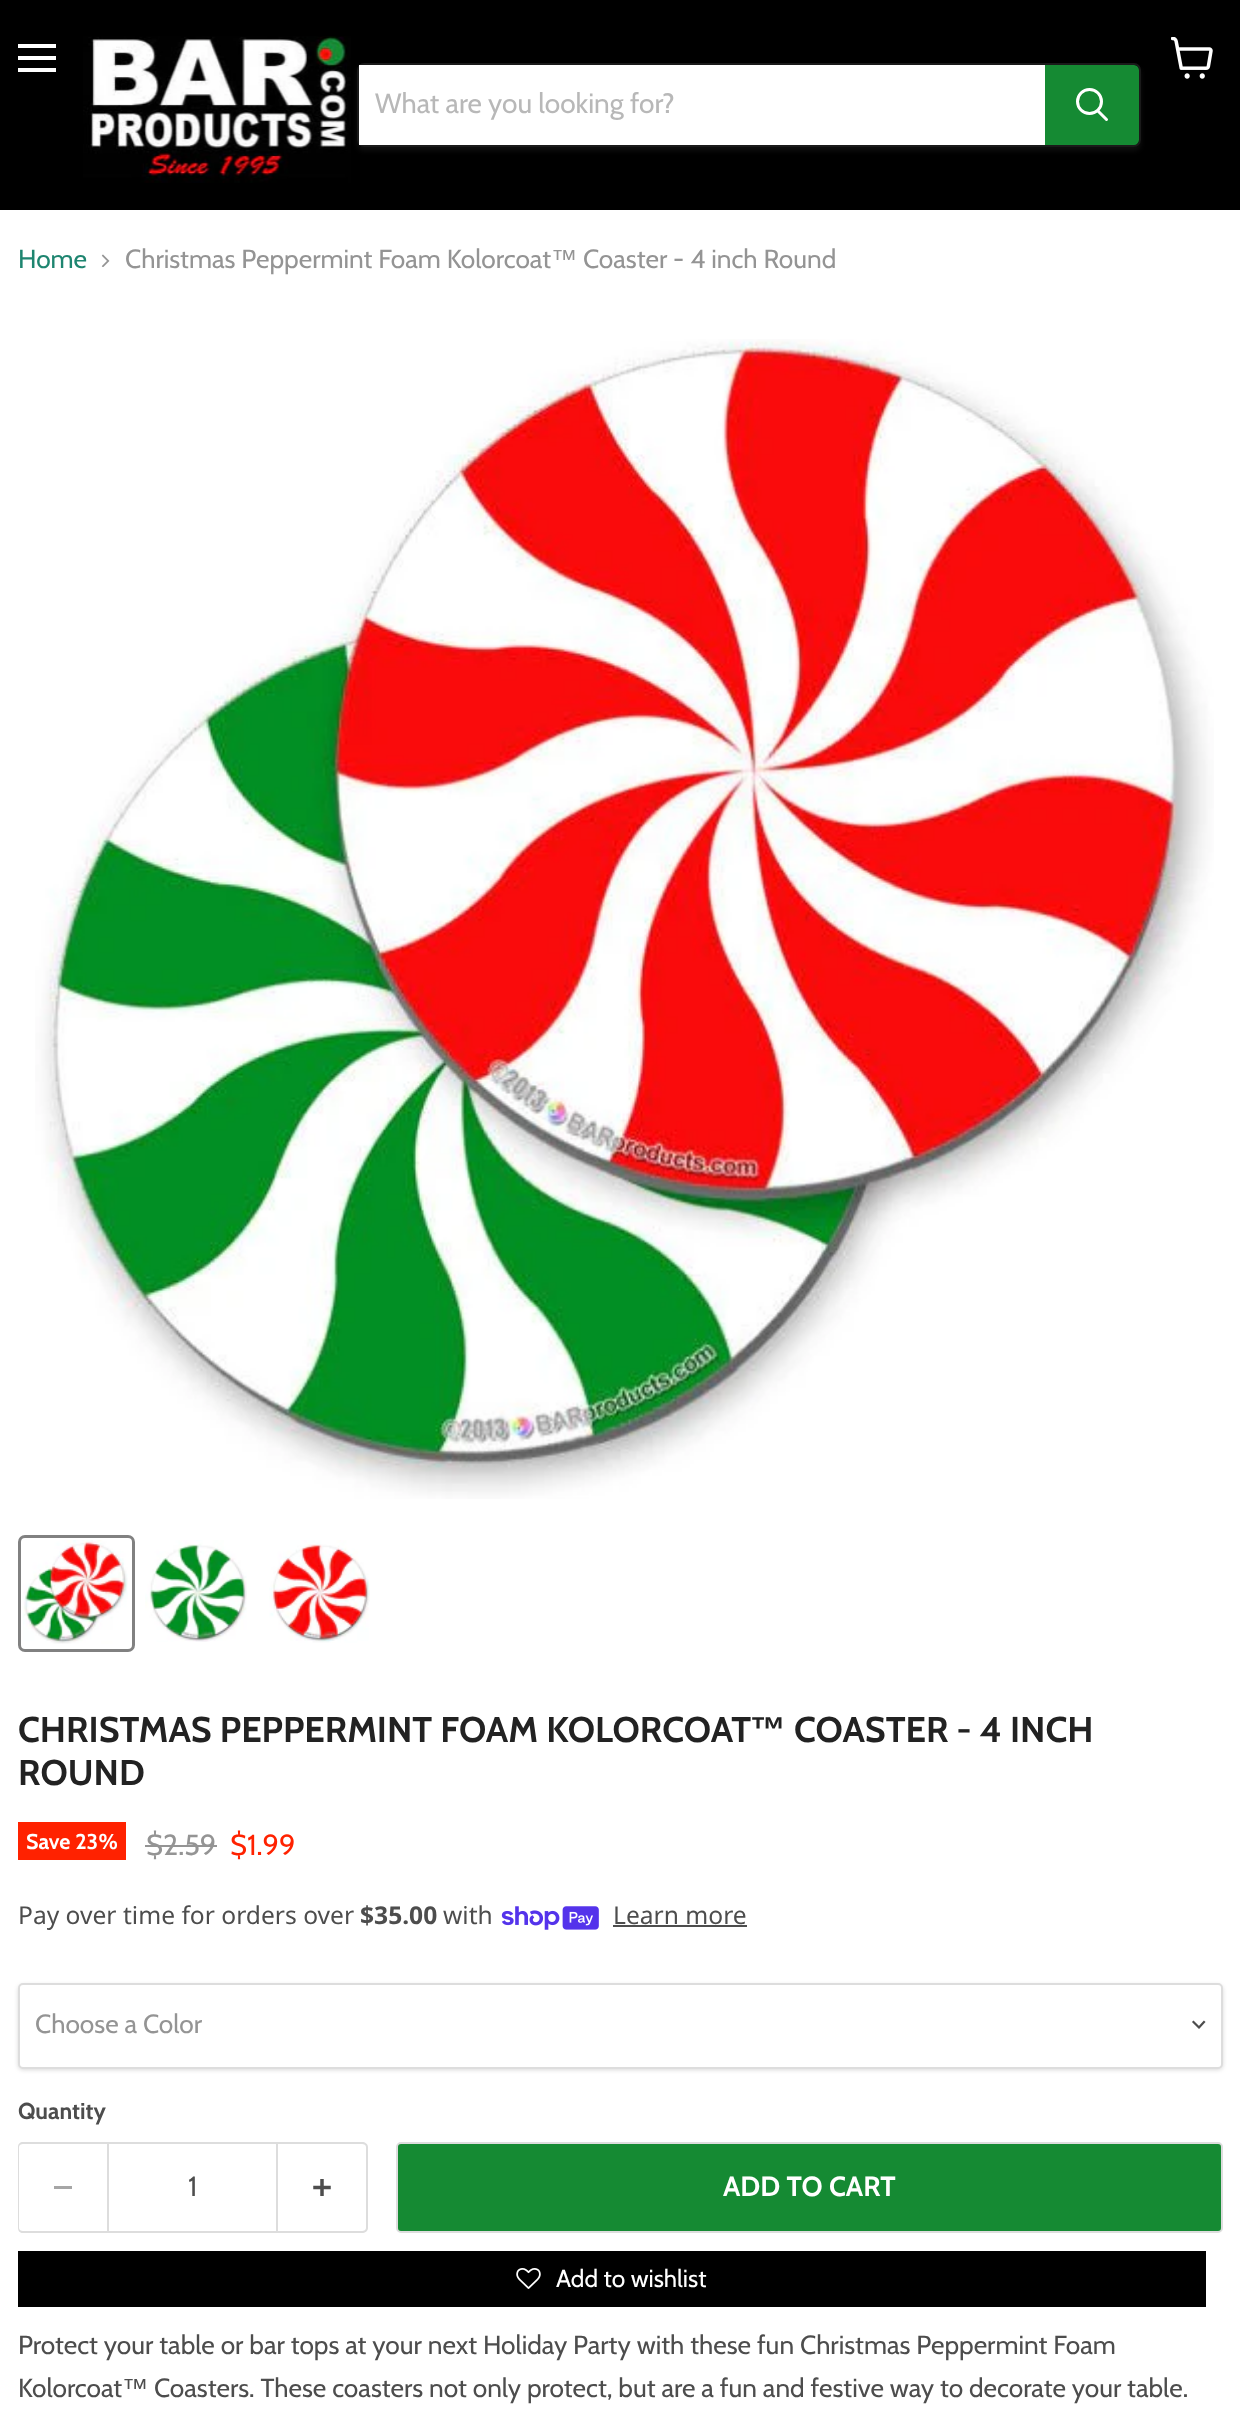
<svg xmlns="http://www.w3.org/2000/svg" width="1240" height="2414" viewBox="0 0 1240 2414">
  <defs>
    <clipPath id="clip1"><path d="M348 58H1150V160H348ZM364 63H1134C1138 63 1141 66 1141 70V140C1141 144 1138 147 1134 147H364C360 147 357 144 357 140V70C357 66 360 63 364 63Z" clip-rule="evenodd"/></clipPath>
  </defs>
  <rect width="100%" height="100%" fill="rgb(255,255,255)"/>
  <rect x="0" y="0" width="1240" height="210" fill="rgb(0,0,0)"/>
  <rect x="18" y="44" width="38" height="4" fill="rgb(255,255,255)"/>
  <rect x="18" y="56" width="38" height="4" fill="rgb(255,255,255)"/>
  <rect x="18" y="68" width="38" height="4" fill="rgb(255,255,255)"/>
  <image x="1171" y="37" width="42" height="42" href="pic1.png"/>
  <image x="83" y="36" width="268" height="147" href="pic2.png"/>
  <g clip-path="url(#clip1)">
    <rect x="357" y="67" width="784" height="84" rx="7" fill="rgba(128,128,128,0.11)" filter="blur(2.5px)"/>
  </g>
  <rect x="358" y="64" width="782" height="82" rx="6" fill="none" stroke="rgba(128,128,128,0.2)" stroke-width="2"/>
  <rect x="359" y="65" width="686" height="80" fill="rgb(255,255,255)"/>
  <text x="375" y="113" font-family="Cabin" font-size="28" fill="rgb(184,184,184)">What are you looking for?</text>
  <path d="M1046 66H1134C1136 66 1138 68 1138 70V140C1138 142 1136 144 1134 144H1046Z" fill="rgb(21,138,51)" stroke="rgb(21,138,51)" stroke-width="2"/>
  <path d="M1106.5 119.5L1098 111" fill="none" stroke="rgb(255,255,255)" stroke-width="3" stroke-linecap="round"/>
  <circle cx="1089.5" cy="101.5" r="12" fill="none" stroke="rgb(255,255,255)" stroke-width="3"/>
  <text x="18" y="268" font-family="Cabin" font-size="26.25" fill="rgb(30,133,112)">Home</text>
  <image x="101" y="254" width="9" height="13" href="pic3.png"/>
  <text x="125" y="268" font-family="Cabin" font-size="26.25" fill="rgb(148,148,148)">Christmas Peppermint Foam Kolorcoat</text>
  <text x="551" y="268" font-family="Liberation Sans" font-size="26.25" fill="rgb(148,148,148)">™</text>
  <text x="583" y="268" font-family="Cabin" font-size="26.25" fill="rgb(148,148,148)">Coaster - 4 inch Round</text>
  <image x="35" y="339" width="1179" height="1160" href="pic4.png"/>
  <rect x="19.5" y="1536.5" width="114" height="114" rx="5.5" fill="none" stroke="rgb(129,129,129)" stroke-width="3"/>
  <image x="23" y="1540" width="105" height="104" href="pic5.png"/>
  <image x="145" y="1540" width="102" height="102" href="pic6.png"/>
  <image x="269" y="1540" width="101" height="103" href="pic7.png"/>
  <text x="18" y="1742" font-family="Cabin" font-size="35.9" font-weight="bold" fill="rgb(34,34,34)">CHRISTMAS PEPPERMINT FOAM KOLORCOAT</text>
  <text x="750" y="1742" font-family="Liberation Sans" font-size="35.9" font-weight="bold" fill="rgb(34,34,34)">™</text>
  <g font-family="Cabin" font-size="35.9" font-weight="bold" fill="rgb(34,34,34)">
    <text x="794" y="1742">COASTER - 4 INCH</text>
    <text x="18" y="1785">ROUND</text>
  </g>
  <rect x="18" y="1822" width="108" height="38" fill="rgb(255,34,0)"/>
  <text x="26" y="1849" font-family="Cabin" font-size="21.5" font-weight="bold" fill="rgb(255,255,255)">Save 23%</text>
  <text x="146" y="1855" font-family="Cabin" font-size="29" fill="rgb(148,148,148)">$2.59</text>
  <rect x="145" y="1845" width="72" height="2" fill="rgb(148,148,148)"/>
  <text x="230" y="1855" font-family="Cabin" font-size="29" fill="rgb(255,34,0)">$1.99</text>
  <text x="18" y="1924" font-family="Noto Sans" font-size="24.6" fill="rgb(77,77,77)">Pay over time for orders over</text>
  <text x="360" y="1924" font-family="Noto Sans" font-size="24.6" font-weight="bold" fill="rgb(77,77,77)">$35.00</text>
  <text x="443" y="1924" font-family="Noto Sans" font-size="24.6" fill="rgb(77,77,77)">with</text>
  <image x="501" y="1906" width="98" height="24" href="pic8.png"/>
  <text x="613" y="1924" font-family="Noto Sans" font-size="24.6" fill="rgb(77,77,77)">Learn more</text>
  <rect x="613" y="1925" width="134" height="2" fill="rgb(77,77,77)"/>
  <rect x="18" y="1985" width="1205" height="85" rx="5" fill="rgba(0,0,0,0.15)" filter="blur(2px)"/>
  <rect x="19" y="1984" width="1203" height="84" rx="4" fill="rgb(255,255,255)" stroke="rgb(221,221,221)" stroke-width="2"/>
  <path d="M1199 2027.5L1204 2022M1199 2027.5L1193.5 2022" fill="none" stroke="rgb(77,77,77)" stroke-width="2.2" stroke-linecap="square"/>
  <text x="35" y="2033" font-family="Cabin" font-size="26.25" fill="rgb(148,148,148)">Choose a Color</text>
  <text x="18" y="2119" font-family="Cabin" font-size="23" font-weight="bold" fill="rgb(77,77,77)">Quantity</text>
  <path d="M23 2142H107V2233H23C20 2233 18 2231 18 2228V2147C18 2144 20 2142 23 2142ZM23 2144H107V2231H23C21 2231 19 2230 19 2228V2147C19 2145 21 2144 23 2144Z" fill="rgb(221,221,221)" fill-rule="evenodd"/>
  <rect x="54" y="2186" width="18" height="3" fill="rgb(166,166,166)"/>
  <rect x="108" y="2143" width="169" height="89" fill="none" stroke="rgb(221,221,221)" stroke-width="2"/>
  <text x="188" y="2196" font-family="Cabin" font-size="27.75" fill="rgb(77,77,77)">1</text>
  <path d="M278 2142H362C365 2142 368 2144 368 2147V2228C368 2231 365 2233 362 2233H278ZM278 2144H362C364 2144 366 2145 366 2147V2228C366 2230 364 2231 362 2231H278Z" fill="rgb(221,221,221)" fill-rule="evenodd"/>
  <image x="313" y="2179" width="18" height="17" href="pic9.png"/>
  <rect x="397" y="2143" width="825" height="89" rx="4" fill="rgb(21,138,51)" stroke="rgb(221,221,221)" stroke-width="2"/>
  <text x="723" y="2196" font-family="Cabin" font-size="27.75" font-weight="bold" fill="rgb(255,255,255)">ADD TO CART</text>
  <rect x="18" y="2251" width="1188" height="56" fill="rgb(0,0,0)"/>
  <image x="516" y="2268" width="25" height="21" href="pic10.png"/>
  <text x="556" y="2287" font-family="Cabin" font-size="24.5" fill="rgb(255,255,255)">Add to wishlist</text>
  <g font-family="Cabin" font-size="26.25" fill="rgb(77,77,77)">
    <text>
      <tspan x="18" y="2354">Protect your table or bar tops at your next Holiday Party with these fun Christmas Peppermint Foam</tspan>
      <tspan x="18" y="2397">Kolorcoat</tspan>
    </text>
  </g>
  <text x="122" y="2397" font-family="Liberation Sans" font-size="26.25" fill="rgb(77,77,77)">™</text>
  <text x="154" y="2397" font-family="Cabin" font-size="26.25" fill="rgb(77,77,77)">Coasters. These coasters not only protect, but are a fun and festive way to decorate your table.</text>
</svg>
